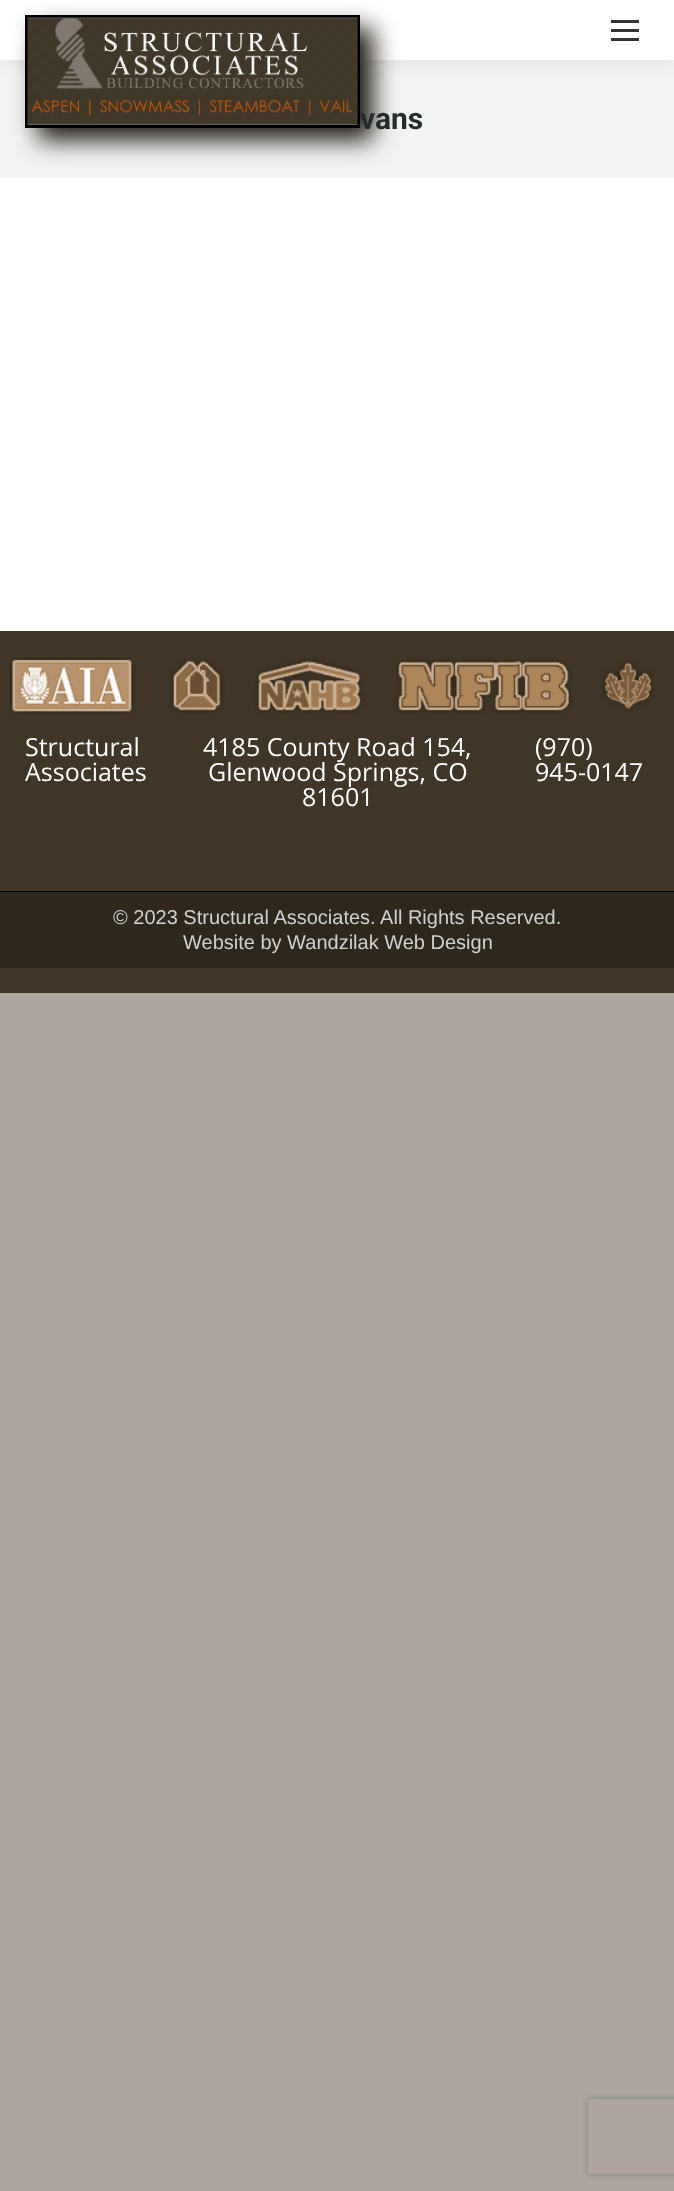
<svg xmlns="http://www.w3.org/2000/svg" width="674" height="2191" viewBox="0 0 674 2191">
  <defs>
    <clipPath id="clip1"><path d="M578 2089H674V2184H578ZM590.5 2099H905.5C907 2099 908 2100 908 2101.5V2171.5C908 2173 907 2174 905.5 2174H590.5C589 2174 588 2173 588 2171.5V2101.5C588 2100 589 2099 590.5 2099Z" clip-rule="evenodd"/></clipPath>
  </defs>
  <rect width="100%" height="100%" fill="rgb(172,166,158)"/>
  <rect x="0" y="60" width="674" height="118" fill="rgb(242,243,243)"/>
  <rect x="-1" y="-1" width="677" height="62" fill="rgba(0,0,0,0.07)" filter="blur(9.5px)"/>
  <rect x="0" y="0" width="674" height="60" fill="rgb(255,255,255)"/>
  <rect x="0" y="178" width="674" height="453" fill="rgb(255,255,255)"/>
  <rect x="38" y="28" width="335" height="112" fill="rgb(29,24,17)" filter="blur(12.5px)"/>
  <rect x="26.5" y="16.5" width="332" height="110" fill="none" stroke="rgb(0,0,0)" stroke-width="3"/>
  <image x="27" y="17" width="331" height="108" href="pic1.png"/>
  <rect x="611" y="20" width="28" height="3" fill="rgb(51,51,51)"/>
  <rect x="611" y="29" width="28" height="3" fill="rgb(51,51,51)"/>
  <rect x="611" y="38" width="28" height="3" fill="rgb(51,51,51)"/>
  <text x="360" y="129" font-family="Roboto" font-size="30" font-weight="bold" fill="rgb(38,43,46)">vans</text>
  <rect x="0" y="631" width="674" height="362" fill="rgb(63,54,39)"/>
  <image x="9" y="657" width="645" height="58" href="pic2.png"/>
  <g font-family="Open Sans" font-size="25" fill="rgb(255,255,255)">
    <text>
      <tspan x="25" y="756">Structural</tspan>
      <tspan x="25" y="781">Associates</tspan>
    </text>
    <text x="203" y="756">4185 County Road 154,</text>
    <text x="208" y="781">Glenwood Springs, CO</text>
    <text x="302" y="806">81601</text>
    <text>
      <tspan x="535" y="756">(970)</tspan>
      <tspan x="535" y="781">945-0147</tspan>
    </text>
  </g>
  <rect x="0" y="892" width="674" height="76" fill="rgb(45,39,28)"/>
  <rect x="0" y="891" width="674" height="1" fill="rgb(0,0,0)"/>
  <g font-family="Liberation Sans" font-size="20" fill="rgb(209,209,209)">
    <text x="113" y="924">© 2023 Structural Associates. All Rights Reserved.</text>
    <text x="183" y="949">Website by Wandzilak Web Design</text>
  </g>
  <g clip-path="url(#clip1)">
    <rect x="588" y="2099" width="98" height="75" rx="2.5" fill="rgb(128,128,128)" filter="blur(3px)"/>
  </g>
</svg>
